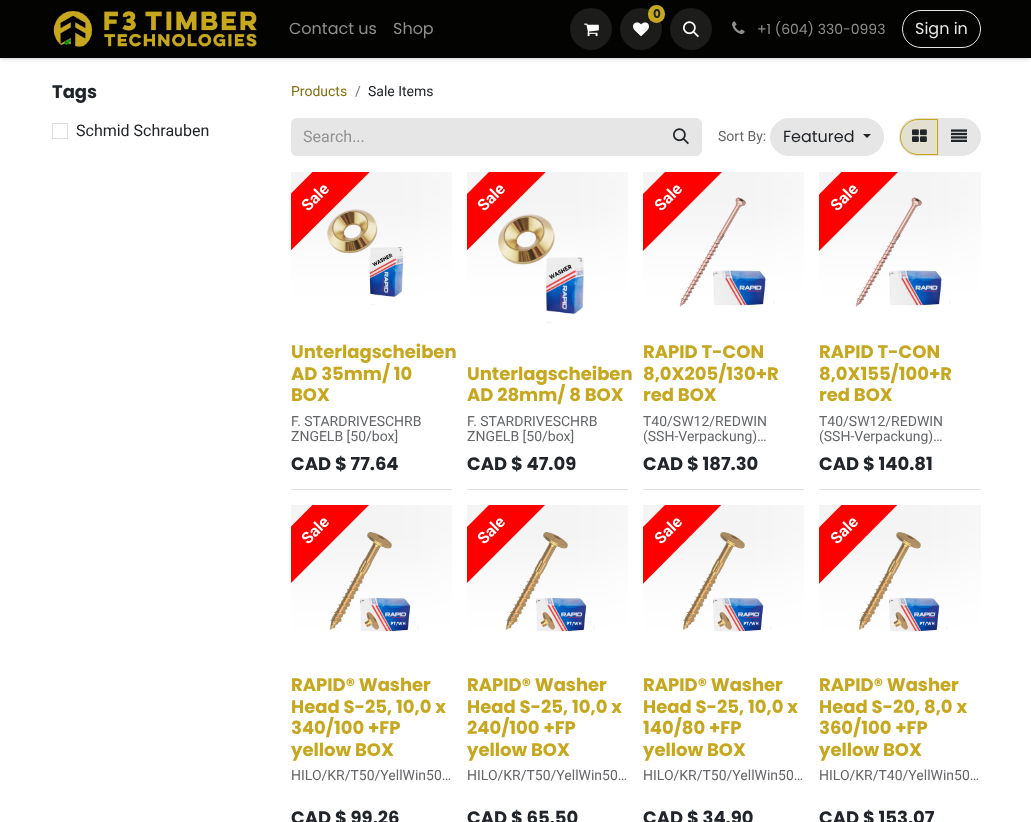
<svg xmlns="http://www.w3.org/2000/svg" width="1031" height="822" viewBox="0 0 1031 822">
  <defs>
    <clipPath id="clip1"><rect x="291" y="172" width="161" height="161"/></clipPath>
    <clipPath id="clip2"><rect x="291" y="172" width="161" height="161"/></clipPath>
    <clipPath id="clip3"><rect x="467" y="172" width="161" height="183"/></clipPath>
    <clipPath id="clip4"><rect x="467" y="172" width="161" height="183"/></clipPath>
    <clipPath id="clip5"><rect x="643" y="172" width="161" height="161"/></clipPath>
    <clipPath id="clip6"><rect x="643" y="172" width="161" height="161"/></clipPath>
    <clipPath id="clip7"><rect x="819" y="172" width="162" height="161"/></clipPath>
    <clipPath id="clip8"><rect x="819" y="172" width="162" height="161"/></clipPath>
    <clipPath id="clip9"><rect x="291" y="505" width="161" height="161"/></clipPath>
    <clipPath id="clip10"><rect x="291" y="505" width="161" height="161"/></clipPath>
    <clipPath id="clip11"><rect x="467" y="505" width="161" height="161"/></clipPath>
    <clipPath id="clip12"><rect x="467" y="505" width="161" height="161"/></clipPath>
    <clipPath id="clip13"><rect x="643" y="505" width="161" height="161"/></clipPath>
    <clipPath id="clip14"><rect x="643" y="505" width="161" height="161"/></clipPath>
    <clipPath id="clip15"><rect x="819" y="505" width="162" height="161"/></clipPath>
    <clipPath id="clip16"><rect x="819" y="505" width="162" height="161"/></clipPath>
  </defs>
  <rect width="100%" height="100%" fill="rgb(255,255,255)"/>
  <rect x="0" y="0" width="1031" height="58" fill="rgba(0,0,0,0.25)" filter="blur(2.5px)"/>
  <rect x="52.5" y="123.5" width="15" height="15" fill="none" stroke="rgb(222,222,223)"/>
  <path d="M297 118H661V156H297C293.5 156 291 153.5 291 150V124C291 120.5 293.5 118 297 118Z" fill="rgb(230,230,230)"/>
  <image x="327" y="209" width="77" height="96" href="pic9.png"/>
  <g clip-path="url(#clip1)">
    <rect x="170" y="137" width="291" height="100" fill="rgba(0,0,0,0.05)" filter="blur(35px)"/>
  </g>
  <g clip-path="url(#clip2)">
    <path d="M220 265L383 101L412 130L248 293Z" fill="rgb(255,0,0)"/>
  </g>
  <image x="498" y="214" width="86" height="110" href="pic10.png"/>
  <g clip-path="url(#clip3)">
    <rect x="346" y="137" width="292" height="100" fill="rgba(0,0,0,0.05)" filter="blur(35px)"/>
  </g>
  <rect x="770.5" y="118.5" width="113" height="37" rx="18.5" fill="rgb(230,230,230)" stroke="rgb(230,230,230)"/>
  <path d="M863 134H871L867 138Z" fill="rgb(33,37,41)"/>
  <g clip-path="url(#clip4)">
    <path d="M396 265L560 101L588 130L424 293Z" fill="rgb(255,0,0)"/>
  </g>
  <image x="679" y="197" width="96" height="110" href="pic11.png"/>
  <g clip-path="url(#clip5)">
    <rect x="523" y="137" width="291" height="100" fill="rgba(0,0,0,0.05)" filter="blur(35px)"/>
  </g>
  <path d="M938.5 118.5H962C972 118.5 980.5 127 980.5 137C980.5 147 972 155.5 962 155.5H938.5Z" fill="rgb(230,230,230)" stroke="rgb(230,230,230)"/>
  <image x="951" y="129" width="16" height="13" href="pic8.png"/>
  <g clip-path="url(#clip6)">
    <path d="M572 265L736 101L764 130L601 293Z" fill="rgb(255,0,0)"/>
  </g>
  <image x="855" y="197" width="96" height="110" href="pic11.png"/>
  <g clip-path="url(#clip7)">
    <rect x="699" y="137" width="291" height="100" fill="rgba(0,0,0,0.05)" filter="blur(35px)"/>
  </g>
  <rect x="0" y="0" width="1031" height="58" fill="rgb(3,3,2)"/>
  <image x="53" y="10" width="204" height="37" href="pic1.png"/>
  <g font-family="Poppins" font-size="16" fill="rgb(142,142,141)">
    <text x="289" y="34">Contact us</text>
    <text x="393" y="34">Shop</text>
  </g>
  <circle cx="591" cy="29" r="21" fill="rgb(28,28,27)"/>
  <image x="584" y="23" width="15" height="14" href="pic2.png"/>
  <circle cx="641" cy="29" r="21" fill="rgb(28,28,27)"/>
  <image x="633" y="22" width="16" height="15" href="pic3.png"/>
  <rect x="648" y="5" width="17" height="18" rx="8.5" fill="rgb(199,167,30)"/>
  <text x="653" y="18" font-family="Poppins" font-size="12" font-weight="bold" fill="rgb(33,37,41)">0</text>
  <circle cx="691" cy="29" r="21" fill="rgb(28,28,27)"/>
  <image x="683" y="21" width="16" height="17" href="pic4.png"/>
  <image x="732" y="21" width="13" height="13" href="pic5.png"/>
  <text x="757" y="34" font-family="Poppins" font-size="14" fill="rgb(142,142,141)">+1 (604) 330-0993</text>
  <rect x="902.5" y="10.5" width="78" height="37" rx="18.5" fill="none" stroke="rgb(230,230,230)"/>
  <text x="915" y="34" font-family="Poppins" font-size="16" fill="rgb(230,230,230)">Sign in</text>
  <text x="52" y="98" font-family="Poppins" font-size="18" font-weight="bold" fill="rgb(33,37,41)">Tags</text>
  <text x="76" y="136" font-family="Roboto" font-size="16" fill="rgb(33,37,41)">Schmid Schrauben</text>
  <text x="291" y="96" font-family="Roboto" font-size="14" fill="rgb(133,111,20)">Products</text>
  <text x="355" y="96" font-family="Roboto" font-size="14" fill="rgb(108,117,125)">/</text>
  <text x="368" y="96" font-family="Roboto" font-size="14" fill="rgb(33,37,41)">Sale Items</text>
  <text x="303" y="142" font-family="Roboto" font-size="16" fill="rgb(144,146,148)">Search...</text>
  <path d="M660.5 118.5H696C699 118.5 701.5 121 701.5 124V150C701.5 153 699 155.5 696 155.5H660.5Z" fill="rgb(230,230,230)" stroke="rgb(230,230,230)"/>
  <image x="673" y="128" width="16" height="17" href="pic6.png"/>
  <text x="718" y="141" font-family="Roboto" font-size="14" fill="rgb(100,102,105)">Sort By:</text>
  <text x="783" y="142" font-family="Poppins" font-size="16" fill="rgb(33,37,41)">Featured</text>
  <path d="M918 118H939V156H918C907.5 156 899 147.5 899 137C899 126.5 907.5 118 918 118Z" fill="rgb(227,224,210)"/>
  <path d="M918 119.5H937.5V154.5H918C908.5 154.5 900.5 146.5 900.5 137C900.5 127.5 908.5 119.5 918 119.5Z" fill="none" stroke="rgb(199,167,30)"/>
  <image x="912" y="129" width="15" height="13" href="pic7.png"/>
  <rect x="291" y="489" width="161" height="1" fill="rgb(222,222,223)"/>
  <text x="308" y="212" transform="rotate(-45 308 212)" font-family="Roboto" font-size="16" font-weight="bold" fill="rgb(255,255,255)">Sale</text>
  <g font-family="Poppins" font-size="18" font-weight="bold" fill="rgb(199,167,30)">
    <text>
      <tspan x="291" y="358">Unterlagscheiben</tspan>
      <tspan x="291" y="380">AD 35mm/ 10</tspan>
      <tspan x="291" y="401">BOX</tspan>
    </text>
  </g>
  <g font-family="Roboto" font-size="14" fill="rgb(100,102,105)">
    <text>
      <tspan x="291" y="426">F. STARDRIVESCHRB</tspan>
      <tspan x="291" y="441">ZNGELB [50/box]</tspan>
    </text>
  </g>
  <text x="291" y="470" font-family="Poppins" font-size="18" font-weight="bold" fill="rgb(33,37,41)">CAD $ 77.64</text>
  <rect x="467" y="489" width="161" height="1" fill="rgb(222,222,223)"/>
  <text x="484" y="212" transform="rotate(-45 484 212)" font-family="Roboto" font-size="16" font-weight="bold" fill="rgb(255,255,255)">Sale</text>
  <g font-family="Poppins" font-size="18" font-weight="bold" fill="rgb(199,167,30)">
    <text>
      <tspan x="467" y="380">Unterlagscheiben</tspan>
      <tspan x="467" y="401">AD 28mm/ 8 BOX</tspan>
    </text>
  </g>
  <g font-family="Roboto" font-size="14" fill="rgb(100,102,105)">
    <text>
      <tspan x="467" y="426">F. STARDRIVESCHRB</tspan>
      <tspan x="467" y="441">ZNGELB [50/box]</tspan>
    </text>
  </g>
  <text x="467" y="470" font-family="Poppins" font-size="18" font-weight="bold" fill="rgb(33,37,41)">CAD $ 47.09</text>
  <rect x="643" y="489" width="161" height="1" fill="rgb(222,222,223)"/>
  <text x="661" y="212" transform="rotate(-45 661 212)" font-family="Roboto" font-size="16" font-weight="bold" fill="rgb(255,255,255)">Sale</text>
  <g font-family="Poppins" font-size="18" font-weight="bold" fill="rgb(199,167,30)">
    <text>
      <tspan x="643" y="358">RAPID T-CON</tspan>
      <tspan x="643" y="380">8,0X205/130+R</tspan>
      <tspan x="643" y="401">red BOX</tspan>
    </text>
  </g>
  <g font-family="Roboto" font-size="14" fill="rgb(100,102,105)">
    <text>
      <tspan x="643" y="426">T40/SW12/REDWIN</tspan>
      <tspan x="643" y="441">(SSH-Verpackung)…</tspan>
    </text>
  </g>
  <text x="643" y="470" font-family="Poppins" font-size="18" font-weight="bold" fill="rgb(33,37,41)">CAD $ 187.30</text>
  <rect x="819" y="489" width="162" height="1" fill="rgb(222,222,223)"/>
  <g clip-path="url(#clip8)">
    <path d="M749 265L912 101L940 130L777 293Z" fill="rgb(255,0,0)"/>
  </g>
  <text x="837" y="212" transform="rotate(-45 837 212)" font-family="Roboto" font-size="16" font-weight="bold" fill="rgb(255,255,255)">Sale</text>
  <g font-family="Poppins" font-size="18" font-weight="bold" fill="rgb(199,167,30)">
    <text>
      <tspan x="819" y="358">RAPID T-CON</tspan>
      <tspan x="819" y="380">8,0X155/100+R</tspan>
      <tspan x="819" y="401">red BOX</tspan>
    </text>
  </g>
  <g font-family="Roboto" font-size="14" fill="rgb(100,102,105)">
    <text>
      <tspan x="819" y="426">T40/SW12/REDWIN</tspan>
      <tspan x="819" y="441">(SSH-Verpackung)…</tspan>
    </text>
  </g>
  <text x="819" y="470" font-family="Poppins" font-size="18" font-weight="bold" fill="rgb(33,37,41)">CAD $ 140.81</text>
  <image x="329" y="532" width="90" height="100" href="pic12.png"/>
  <g clip-path="url(#clip9)">
    <rect x="170" y="470" width="291" height="100" fill="rgba(0,0,0,0.05)" filter="blur(35px)"/>
  </g>
  <g clip-path="url(#clip10)">
    <path d="M220 598L383 434L412 462L248 626Z" fill="rgb(255,0,0)"/>
  </g>
  <text x="308" y="545" transform="rotate(-45 308 545)" font-family="Roboto" font-size="16" font-weight="bold" fill="rgb(255,255,255)">Sale</text>
  <g font-family="Poppins" font-size="18" font-weight="bold" fill="rgb(199,167,30)">
    <text>
      <tspan x="291" y="691">RAPID® Washer</tspan>
      <tspan x="291" y="713">Head S-25, 10,0 x</tspan>
      <tspan x="291" y="734">340/100 +FP</tspan>
      <tspan x="291" y="756">yellow BOX</tspan>
    </text>
  </g>
  <text x="291" y="780" font-family="Roboto" font-size="14" fill="rgb(100,102,105)">HILO/KR/T50/YellWin50…</text>
  <text x="291" y="824" font-family="Poppins" font-size="18" font-weight="bold" fill="rgb(33,37,41)">CAD $ 99.26</text>
  <image x="505" y="532" width="90" height="100" href="pic13.png"/>
  <g clip-path="url(#clip11)">
    <rect x="346" y="470" width="292" height="100" fill="rgba(0,0,0,0.05)" filter="blur(35px)"/>
  </g>
  <g clip-path="url(#clip12)">
    <path d="M396 598L560 434L588 462L424 626Z" fill="rgb(255,0,0)"/>
  </g>
  <text x="484" y="545" transform="rotate(-45 484 545)" font-family="Roboto" font-size="16" font-weight="bold" fill="rgb(255,255,255)">Sale</text>
  <g font-family="Poppins" font-size="18" font-weight="bold" fill="rgb(199,167,30)">
    <text>
      <tspan x="467" y="691">RAPID® Washer</tspan>
      <tspan x="467" y="713">Head S-25, 10,0 x</tspan>
      <tspan x="467" y="734">240/100 +FP</tspan>
      <tspan x="467" y="756">yellow BOX</tspan>
    </text>
  </g>
  <text x="467" y="780" font-family="Roboto" font-size="14" fill="rgb(100,102,105)">HILO/KR/T50/YellWin50…</text>
  <text x="467" y="824" font-family="Poppins" font-size="18" font-weight="bold" fill="rgb(33,37,41)">CAD $ 65.50</text>
  <image x="682" y="532" width="90" height="100" href="pic14.png"/>
  <g clip-path="url(#clip13)">
    <rect x="523" y="470" width="291" height="100" fill="rgba(0,0,0,0.05)" filter="blur(35px)"/>
  </g>
  <g clip-path="url(#clip14)">
    <path d="M572 598L736 434L764 462L601 626Z" fill="rgb(255,0,0)"/>
  </g>
  <text x="661" y="545" transform="rotate(-45 661 545)" font-family="Roboto" font-size="16" font-weight="bold" fill="rgb(255,255,255)">Sale</text>
  <g font-family="Poppins" font-size="18" font-weight="bold" fill="rgb(199,167,30)">
    <text>
      <tspan x="643" y="691">RAPID® Washer</tspan>
      <tspan x="643" y="713">Head S-25, 10,0 x</tspan>
      <tspan x="643" y="734">140/80 +FP</tspan>
      <tspan x="643" y="756">yellow BOX</tspan>
    </text>
  </g>
  <text x="643" y="780" font-family="Roboto" font-size="14" fill="rgb(100,102,105)">HILO/KR/T50/YellWin50…</text>
  <text x="643" y="824" font-family="Poppins" font-size="18" font-weight="bold" fill="rgb(33,37,41)">CAD $ 34.90</text>
  <image x="858" y="532" width="90" height="100" href="pic14.png"/>
  <g clip-path="url(#clip15)">
    <rect x="699" y="470" width="291" height="100" fill="rgba(0,0,0,0.05)" filter="blur(35px)"/>
  </g>
  <g clip-path="url(#clip16)">
    <path d="M749 598L912 434L940 462L777 626Z" fill="rgb(255,0,0)"/>
  </g>
  <text x="837" y="545" transform="rotate(-45 837 545)" font-family="Roboto" font-size="16" font-weight="bold" fill="rgb(255,255,255)">Sale</text>
  <g font-family="Poppins" font-size="18" font-weight="bold" fill="rgb(199,167,30)">
    <text>
      <tspan x="819" y="691">RAPID® Washer</tspan>
      <tspan x="819" y="713">Head S-20, 8,0 x</tspan>
      <tspan x="819" y="734">360/100 +FP</tspan>
      <tspan x="819" y="756">yellow BOX</tspan>
    </text>
  </g>
  <text x="819" y="780" font-family="Roboto" font-size="14" fill="rgb(100,102,105)">HILO/KR/T40/YellWin50…</text>
  <text x="819" y="824" font-family="Poppins" font-size="18" font-weight="bold" fill="rgb(33,37,41)">CAD $ 153.07</text>
</svg>
